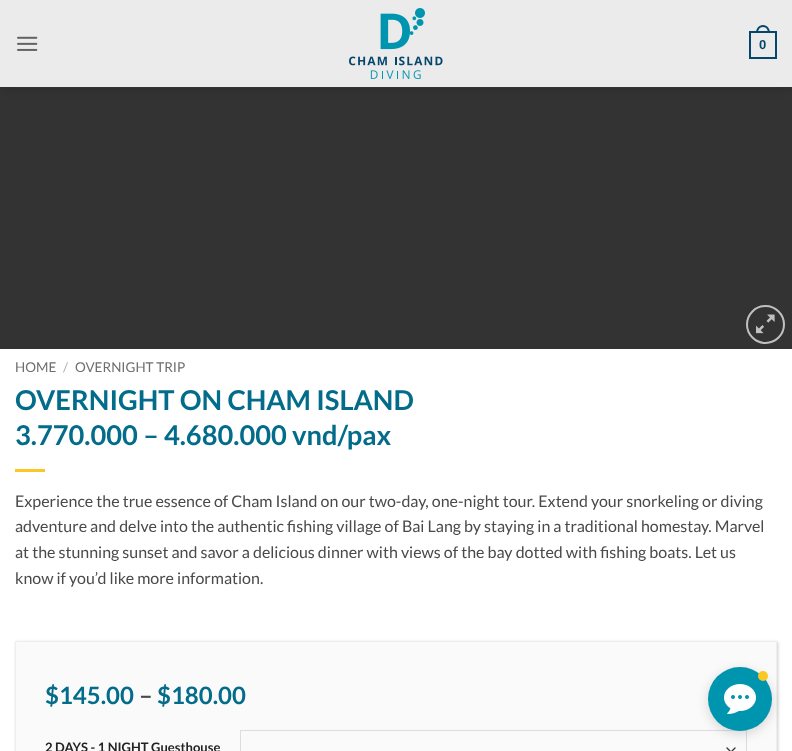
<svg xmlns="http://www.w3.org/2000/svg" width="792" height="751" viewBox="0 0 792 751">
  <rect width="100%" height="100%" fill="rgb(255,255,255)"/>
  <rect x="0" y="87" width="792" height="262" fill="rgb(51,51,51)"/>
  <rect x="1" y="1" width="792" height="87" fill="rgba(0,0,0,0.15)" filter="blur(5px)"/>
  <rect x="0" y="0" width="792" height="87" fill="rgb(235,235,235)"/>
  <image x="17" y="36" width="21" height="15" href="pic1.png"/>
  <image x="349" y="8" width="94" height="71" href="pic2.png"/>
  <rect x="750" y="32" width="26" height="26" fill="none" stroke="rgb(5,70,108)" stroke-width="2"/>
  <path d="M763 25C767.5 25 770 29 770 33H756C756 29 758.5 25 763 25ZM763 27C766.5 27 768 30 768 33H758C758 30 759.5 27 763 27Z" fill="rgb(5,70,108)" fill-rule="evenodd"/>
  <text x="759" y="49" font-family="Liberation Sans" font-size="13" font-weight="bold" fill="rgb(5,70,108)">0</text>
  <rect x="15" y="87" width="762" height="1" fill="rgb(50,50,50)"/>
  <circle cx="765.5" cy="324.5" r="18.5" fill="none" stroke="rgb(192,192,192)" stroke-width="2"/>
  <image x="756" y="314" width="19" height="20" href="pic3.png"/>
  <text x="15" y="372" font-family="Lato" font-size="13.5" fill="rgb(110,110,110)">HOME</text>
  <text x="63" y="372" font-family="Lato" font-size="13.5" fill="rgb(178,178,178)">/</text>
  <text x="75" y="372" font-family="Lato" font-size="13.5" fill="rgb(110,110,110)">OVERNIGHT TRIP</text>
  <g font-family="Lato" font-size="27.25" font-weight="bold" fill="rgb(3,108,138)">
    <text>
      <tspan x="15" y="410">OVERNIGHT ON CHAM ISLAND</tspan>
      <tspan x="15" y="445">3.770.000 – 4.680.000 vnd/pax</tspan>
    </text>
  </g>
  <rect x="15" y="469" width="30" height="3" fill="rgb(251,199,38)"/>
  <g font-family="Lato" font-size="16" fill="rgb(74,74,74)">
    <text>
      <tspan x="15" y="507">Experience the true essence of Cham Island on our two-day, one-night tour. Extend your snorkeling or diving</tspan>
      <tspan x="15" y="532">adventure and delve into the authentic fishing village of Bai Lang by staying in a traditional homestay. Marvel</tspan>
      <tspan x="15" y="558">at the stunning sunset and savor a delicious dinner with views of the bay dotted with fishing boats. Let us</tspan>
      <tspan x="15" y="584">know if you’d like more information.</tspan>
    </text>
  </g>
  <rect x="16" y="642" width="762" height="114" fill="rgba(0,0,0,0.2)" filter="blur(1.5px)"/>
  <rect x="15.5" y="641.5" width="761" height="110" fill="rgb(250,250,250)" stroke="rgb(238,238,238)"/>
  <text x="45" y="704" font-family="Lato" font-size="24" font-weight="bold" fill="rgb(3,108,138)">$145.00</text>
  <text x="139" y="704" font-family="Lato" font-size="24" font-weight="bold" fill="rgb(74,74,74)">–</text>
  <text x="157" y="704" font-family="Lato" font-size="24" font-weight="bold" fill="rgb(3,108,138)">$180.00</text>
  <text x="45" y="752" font-family="Lato" font-size="13" font-weight="bold" fill="rgb(34,34,34)">2 DAYS - 1 NIGHT Guesthouse</text>
  <path d="M727 748L731 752L735 748" fill="none" stroke="rgb(51,51,51)" stroke-width="1.3" stroke-linecap="round" stroke-linejoin="round"/>
  <rect x="240.5" y="730.5" width="506" height="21" fill="none" stroke="rgb(221,221,221)"/>
  <rect x="708" y="670" width="64" height="64" rx="32" fill="rgba(0,0,0,0.15)" filter="blur(6px)"/>
  <circle cx="740" cy="699" r="32" fill="rgb(0,149,174)"/>
  <circle cx="763" cy="676" r="5" fill="rgb(251,199,38)"/>
  <image x="724" y="684" width="32" height="30" href="pic4.png"/>
</svg>
